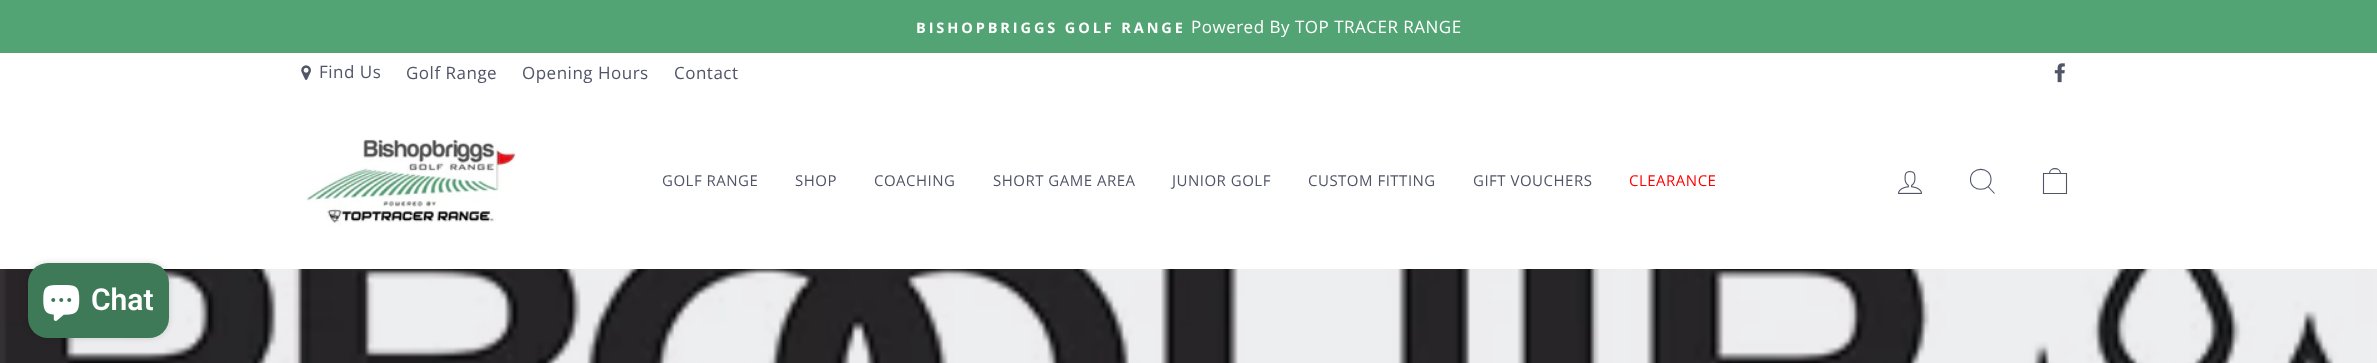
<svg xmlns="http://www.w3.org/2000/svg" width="2377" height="363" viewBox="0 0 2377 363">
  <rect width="100%" height="100%" fill="rgb(255,255,255)"/>
  <rect x="0" y="0" width="2377" height="53" fill="rgb(82,164,116)"/>
  <text x="916" y="33" font-family="Open Sans" font-size="14.5" font-weight="bold" letter-spacing="2.9" fill="rgb(255,255,255)">BISHOPBRIGGS GOLF RANGE</text>
  <text x="1191" y="33" font-family="Open Sans" font-size="17" letter-spacing="0.5" fill="rgb(255,255,255)">Powered By TOP TRACER RANGE</text>
  <image x="301" y="65" width="10" height="15" href="pic1.png"/>
  <g font-family="Open Sans" font-size="17" letter-spacing="0.5" fill="rgb(80,85,104)">
    <text x="319" y="78">Find Us</text>
    <text x="406" y="79">Golf Range</text>
    <text x="522" y="79">Opening Hours</text>
    <text x="674" y="79">Contact</text>
  </g>
  <image x="2054" y="63" width="11" height="20" href="pic2.png"/>
  <image x="0" y="269" width="2377" height="94" href="pic5.png"/>
  <rect x="0" y="94" width="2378" height="175" fill="rgba(0,0,0,0.2)" filter="blur(0.5px)"/>
  <rect x="0" y="94" width="2377" height="175" fill="rgb(255,255,255)"/>
  <image x="306" y="139" width="210" height="87" href="pic3.png"/>
  <g font-family="Open Sans" font-size="15" letter-spacing="0.5" fill="rgb(80,85,104)">
    <text x="662" y="186">GOLF RANGE</text>
    <text x="795" y="186">SHOP</text>
    <text x="874" y="186">COACHING</text>
    <text x="993" y="186">SHORT GAME AREA</text>
    <text x="1172" y="186">JUNIOR GOLF</text>
    <text x="1308" y="186">CUSTOM FITTING</text>
    <text x="1473" y="186">GIFT VOUCHERS</text>
  </g>
  <text x="1629" y="186" font-family="Open Sans" font-size="15" letter-spacing="0.5" fill="rgb(255,0,0)">CLEARANCE</text>
  <image x="1898" y="171" width="24" height="23" href="pic4.png"/>
  <path d="M1991 179.5C1991 192.5 1970.5 192.5 1970.5 179.5C1970.5 166 1991 166 1991 179.5ZM1994.5 193.5L1988 186.5" fill="none" stroke="rgb(80,85,104)" stroke-width="1.1"/>
  <path d="M2043.5 173.5H2066.5V193.5H2043.5ZM2049.5 173.5C2049.5 167 2060.5 167 2060.5 173.5" fill="none" stroke="rgb(80,85,104)" stroke-width="1.1"/>
  <rect x="28" y="263" width="141" height="75" rx="20" fill="rgba(0,0,0,0.15)" filter="blur(3px)"/>
  <rect x="28" y="263" width="141" height="75" rx="20" fill="rgb(62,122,87)"/>
  <image x="43" y="285" width="37" height="36" href="pic6.png"/>
  <text x="91" y="310" font-family="Roboto" font-size="30" font-weight="600" fill="rgb(255,255,255)">Chat</text>
</svg>
